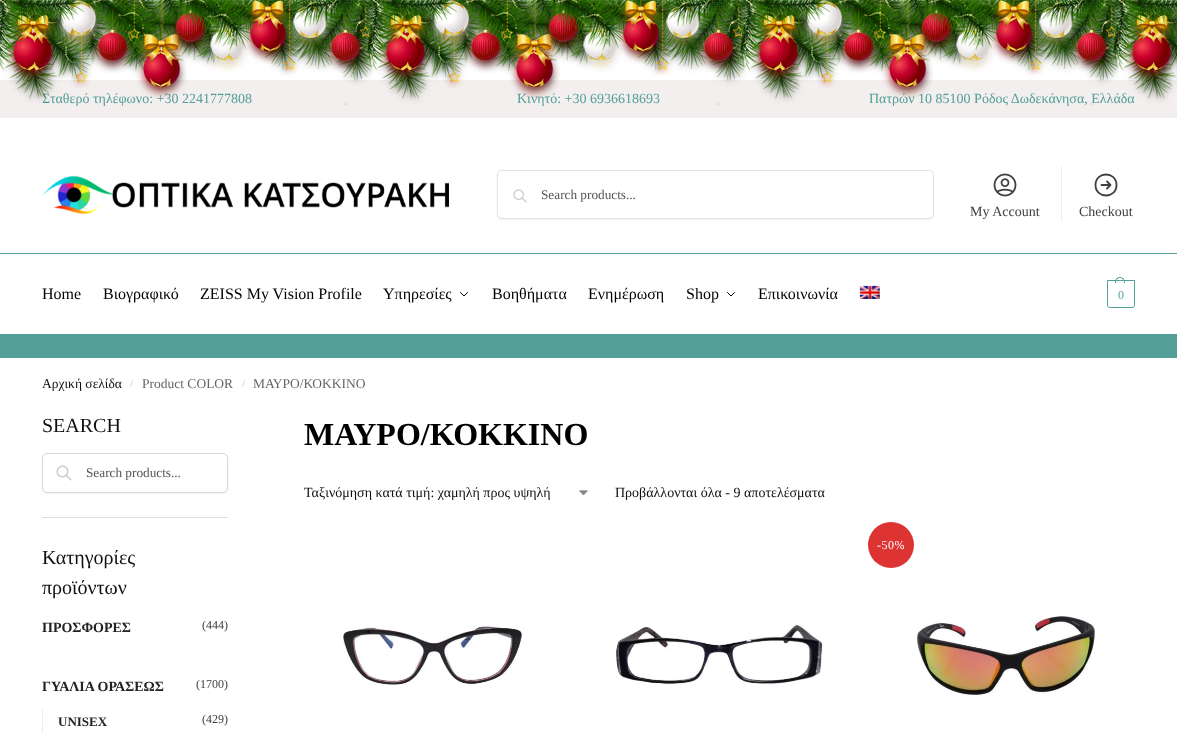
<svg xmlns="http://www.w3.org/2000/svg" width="1192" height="733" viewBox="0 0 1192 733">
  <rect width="100%" height="100%" fill="rgb(255,255,255)"/>
  <rect x="0" y="80" width="1177" height="37" fill="rgb(243,239,239)"/>
  <g font-family="Liberation Serif" font-size="14" fill="rgb(84,159,151)">
    <text x="42" y="103">Σταθερό τηλέφωνο: +30 2241777808</text>
    <text x="517" y="103">Κινητό: +30 6936618693</text>
    <text x="869" y="103">Πατρών 10 85100 Ρόδος Δωδεκάνησα, Ελλάδα</text>
  </g>
  <image x="0" y="0" width="1177" height="105" href="pic1.png"/>
  <image x="6" y="0" width="52" height="82" href="pic3.png"/>
  <image x="0" y="0" width="25" height="71" href="pic2.png"/>
  <image x="54" y="0" width="49" height="47" href="pic5.png"/>
  <image x="25" y="0" width="61" height="27" href="pic4.png"/>
  <image x="136" y="0" width="51" height="99" href="pic6.png"/>
  <image x="170" y="0" width="41" height="54" href="pic7.png"/>
  <image x="204" y="6" width="45" height="66" href="pic13.png"/>
  <image x="177" y="0" width="28" height="31" href="pic8.png"/>
  <image x="243" y="0" width="49" height="64" href="pic10.png"/>
  <image x="205" y="0" width="50" height="50" href="pic9.png"/>
  <image x="287" y="0" width="46" height="49" href="pic11.png"/>
  <image x="91" y="9" width="42" height="64" href="pic12.png"/>
  <image x="325" y="10" width="41" height="63" href="pic16.png"/>
  <image x="289" y="0" width="78" height="28" href="pic14.png"/>
  <image x="367" y="0" width="6" height="69" href="pic15.png"/>
  <image x="379" y="0" width="52" height="82" href="pic3.png"/>
  <image x="373" y="0" width="25" height="71" href="pic2.png"/>
  <image x="427" y="0" width="49" height="47" href="pic5.png"/>
  <image x="398" y="0" width="61" height="27" href="pic4.png"/>
  <image x="509" y="0" width="51" height="99" href="pic17.png"/>
  <image x="543" y="0" width="41" height="54" href="pic7.png"/>
  <image x="577" y="6" width="45" height="66" href="pic13.png"/>
  <image x="550" y="0" width="28" height="31" href="pic8.png"/>
  <image x="616" y="0" width="49" height="64" href="pic10.png"/>
  <image x="578" y="0" width="50" height="50" href="pic9.png"/>
  <image x="660" y="0" width="46" height="49" href="pic11.png"/>
  <image x="464" y="9" width="42" height="64" href="pic12.png"/>
  <image x="698" y="10" width="41" height="63" href="pic16.png"/>
  <image x="662" y="0" width="78" height="28" href="pic14.png"/>
  <image x="740" y="0" width="6" height="69" href="pic15.png"/>
  <image x="752" y="0" width="52" height="82" href="pic3.png"/>
  <image x="746" y="0" width="25" height="71" href="pic2.png"/>
  <image x="800" y="0" width="49" height="47" href="pic5.png"/>
  <image x="771" y="0" width="61" height="27" href="pic4.png"/>
  <image x="882" y="0" width="51" height="99" href="pic18.png"/>
  <image x="916" y="0" width="41" height="54" href="pic7.png"/>
  <image x="950" y="6" width="45" height="66" href="pic13.png"/>
  <image x="923" y="0" width="28" height="31" href="pic8.png"/>
  <image x="989" y="0" width="49" height="64" href="pic10.png"/>
  <image x="951" y="0" width="50" height="50" href="pic9.png"/>
  <image x="1033" y="0" width="46" height="49" href="pic11.png"/>
  <image x="837" y="9" width="42" height="64" href="pic12.png"/>
  <image x="1071" y="10" width="41" height="63" href="pic16.png"/>
  <image x="1035" y="0" width="78" height="28" href="pic14.png"/>
  <image x="1113" y="0" width="6" height="69" href="pic15.png"/>
  <image x="1125" y="0" width="52" height="82" href="pic3.png"/>
  <image x="1119" y="0" width="25" height="71" href="pic2.png"/>
  <image x="1173" y="11" width="4" height="25" href="pic20.png"/>
  <image x="1144" y="0" width="33" height="27" href="pic19.png"/>
  <rect x="0" y="117" width="1177" height="1" fill="rgb(238,238,238)"/>
  <image x="42" y="175" width="407" height="39" href="pic21.png"/>
  <rect x="497" y="171" width="437" height="49" rx="5" fill="rgba(0,0,0,0.05)" filter="blur(1px)"/>
  <rect x="497.5" y="170.5" width="436" height="48" rx="4.5" fill="rgb(255,255,255)" stroke="rgb(226,226,226)"/>
  <image x="513" y="189" width="14" height="14" href="pic22.png"/>
  <text x="541" y="199" font-family="Liberation Serif" font-size="13.25" fill="rgb(85,85,85)">Search products...</text>
  <image x="993" y="173" width="24" height="24" href="pic23.png"/>
  <text x="970" y="216" font-family="Liberation Serif" font-size="14" fill="rgb(64,64,64)">My Account</text>
  <rect x="1061" y="166" width="1" height="56" fill="rgb(238,238,238)"/>
  <path d="M1107 181.5L1110.5 185M1110.5 185L1107 188.5M1110.5 185H1101.5M1116.5 185C1116.5 199 1095.5 199 1095.5 185C1095.5 171 1116.5 171 1116.5 185Z" fill="none" stroke="rgb(64,64,64)" stroke-width="1.8" stroke-linecap="round" stroke-linejoin="round"/>
  <text x="1079" y="216" font-family="Liberation Serif" font-size="14" fill="rgb(64,64,64)">Checkout</text>
  <rect x="0" y="253" width="1177" height="1" fill="rgb(84,159,151)"/>
  <g font-family="Liberation Serif" font-size="16" fill="rgb(0,0,0)">
    <text x="42" y="299">Home</text>
    <text x="103" y="299">Βιογραφικό</text>
    <text x="200" y="299">ZEISS My Vision Profile</text>
    <text x="383" y="299">Υπηρεσίες</text>
  </g>
  <path d="M467.5 292.5L464 296L460.5 292.5" fill="none" stroke="rgb(0,0,0)" stroke-linecap="round" stroke-linejoin="round"/>
  <g font-family="Liberation Serif" font-size="16" fill="rgb(0,0,0)">
    <text x="492" y="299">Βοηθήματα</text>
    <text x="588" y="299">Ενημέρωση</text>
    <text x="686" y="299">Shop</text>
  </g>
  <path d="M734.5 292.5L731 296L727.5 292.5" fill="none" stroke="rgb(0,0,0)" stroke-linecap="round" stroke-linejoin="round"/>
  <text x="758" y="299" font-family="Liberation Serif" font-size="16" fill="rgb(0,0,0)">Επικοινωνία</text>
  <image x="859" y="285" width="21" height="14" href="pic24.png"/>
  <path d="M1107.5 280.5H1134.5V305C1134.5 306.5 1133.5 307.5 1132 307.5H1110C1108.5 307.5 1107.5 306.5 1107.5 305Z" fill="none" stroke="rgb(84,159,151)"/>
  <path d="M1120 277C1123.5 277 1125 280 1125 283H1115C1115 280 1116.5 277 1120 277ZM1120 278C1123 278 1124 280.5 1124 283H1116C1116 280.5 1117 278 1120 278Z" fill="rgb(84,159,151)" fill-rule="evenodd"/>
  <text x="1118" y="299" font-family="Liberation Serif" font-size="12" letter-spacing="-1" fill="rgb(84,159,151)">0</text>
  <rect x="0" y="334" width="1177" height="24" fill="rgb(84,159,151)"/>
  <text x="42" y="388" font-family="Liberation Serif" font-size="13.5" fill="rgb(17,17,17)">Αρχική σελίδα</text>
  <text x="130" y="387" font-family="Liberation Serif" font-size="11" fill="rgb(194,194,194)">/</text>
  <text x="142" y="388" font-family="Liberation Serif" font-size="13.5" fill="rgb(102,102,102)">Product COLOR</text>
  <text x="242" y="387" font-family="Liberation Serif" font-size="11" fill="rgb(194,194,194)">/</text>
  <text x="253" y="388" font-family="Liberation Serif" font-size="13.5" fill="rgb(102,102,102)">ΜΑΥΡΟ/ΚΟΚΚΙΝΟ</text>
  <rect x="42" y="517" width="186" height="1" fill="rgb(221,221,221)"/>
  <text x="42" y="432" font-family="Liberation Serif" font-size="20" fill="rgb(17,17,17)">SEARCH</text>
  <rect x="42" y="454" width="186" height="40" rx="5" fill="rgba(0,0,0,0.05)" filter="blur(1px)"/>
  <rect x="42.5" y="453.5" width="185" height="39" rx="4.5" fill="rgb(255,255,255)" stroke="rgb(210,214,220)"/>
  <image x="56" y="465" width="16" height="16" href="pic25.png"/>
  <text x="86" y="477" font-family="Liberation Serif" font-size="13.25" fill="rgb(85,85,85)">Search products...</text>
  <g font-family="Liberation Serif" font-size="20" fill="rgb(17,17,17)">
    <text>
      <tspan x="42" y="564">Κατηγορίες</tspan>
      <tspan x="42" y="594">προϊόντων</tspan>
    </text>
  </g>
  <text x="42" y="632" font-family="Liberation Serif" font-size="14" font-weight="bold" fill="rgb(34,34,34)">ΠΡΟΣΦΟΡΕΣ</text>
  <text x="202" y="629" font-family="Liberation Serif" font-size="12" fill="rgb(64,64,64)">(444)</text>
  <text x="42" y="691" font-family="Liberation Serif" font-size="14" font-weight="bold" fill="rgb(34,34,34)">ΓΥΑΛΙΑ ΟΡΑΣΕΩΣ</text>
  <text x="196" y="688" font-family="Liberation Serif" font-size="12" fill="rgb(64,64,64)">(1700)</text>
  <rect x="42" y="709" width="1" height="24" fill="rgb(238,238,238)"/>
  <text x="58" y="726" font-family="Liberation Serif" font-size="13" font-weight="bold" fill="rgb(34,34,34)">UNISEX</text>
  <text x="202" y="723" font-family="Liberation Serif" font-size="12" fill="rgb(64,64,64)">(429)</text>
  <text x="304" y="445" font-family="Liberation Serif" font-size="32" font-weight="bold" fill="rgb(0,0,0)">ΜΑΥΡΟ/ΚΟΚΚΙΝΟ</text>
  <image x="579" y="490" width="9" height="6" href="pic26.png"/>
  <g font-family="Liberation Serif" font-size="14" fill="rgb(17,17,17)">
    <text x="304" y="497">Ταξινόμηση κατά τιμή: χαμηλή προς υψηλή</text>
    <text x="615" y="497">Προβάλλονται όλα - 9 αποτελέσματα</text>
  </g>
  <circle cx="891" cy="545" r="23" fill="rgb(221,51,51)"/>
  <text x="877" y="549" font-family="Liberation Serif" font-size="12" letter-spacing="0.5" fill="rgb(255,255,255)">-50%</text>
  <image x="917" y="615" width="178" height="80" href="pic27.png"/>
  <image x="343" y="626" width="179" height="59" href="pic28.png"/>
  <image x="616" y="624" width="207" height="61" href="pic29.png"/>
</svg>
